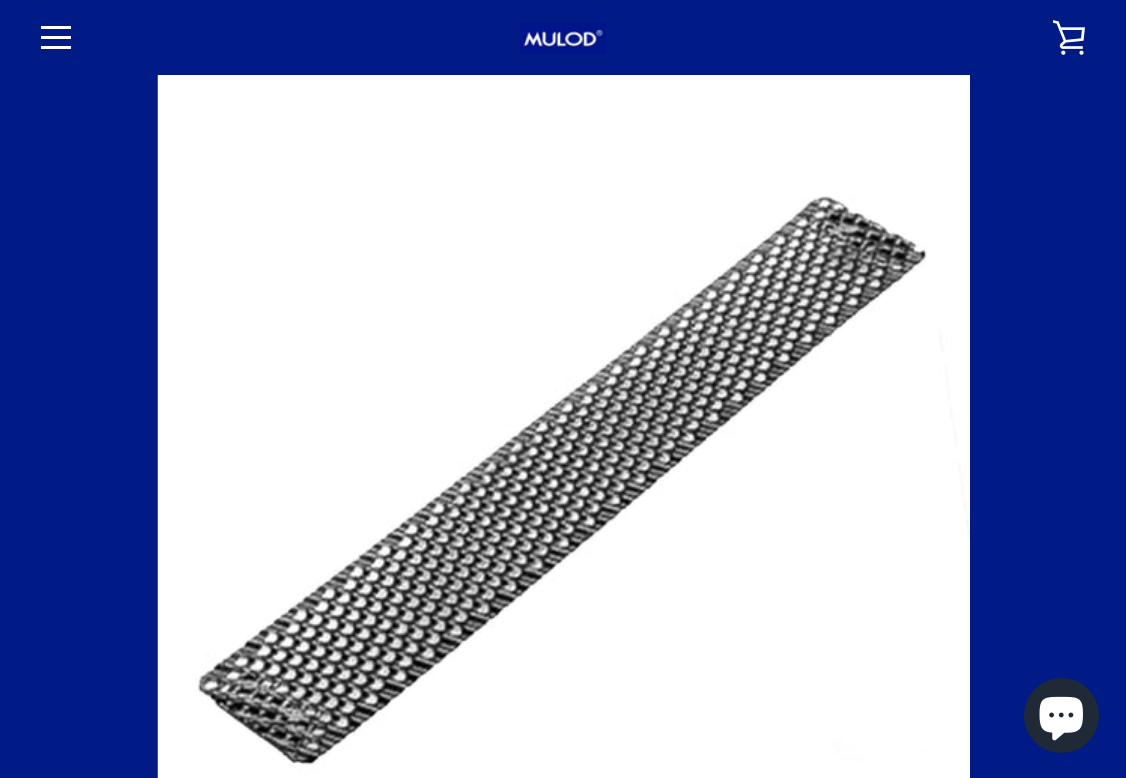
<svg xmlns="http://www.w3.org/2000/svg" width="1126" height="778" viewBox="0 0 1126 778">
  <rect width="100%" height="100%" fill="rgb(0,27,134)"/>
  <rect x="41" y="26" width="30" height="3" fill="rgb(255,255,255)"/>
  <rect x="41" y="36" width="30" height="3" fill="rgb(255,255,255)"/>
  <rect x="41" y="46" width="30" height="3" fill="rgb(255,255,255)"/>
  <image x="520" y="22" width="86" height="32" href="pic1.png"/>
  <image x="1053" y="20" width="32" height="35" href="pic2.png"/>
  <image x="157" y="75" width="813" height="703" href="pic3.png"/>
  <circle cx="1061.5" cy="715.5" r="37.5" fill="rgb(32,42,54)"/>
  <image x="1039" y="696" width="44" height="45" href="pic4.png"/>
</svg>
